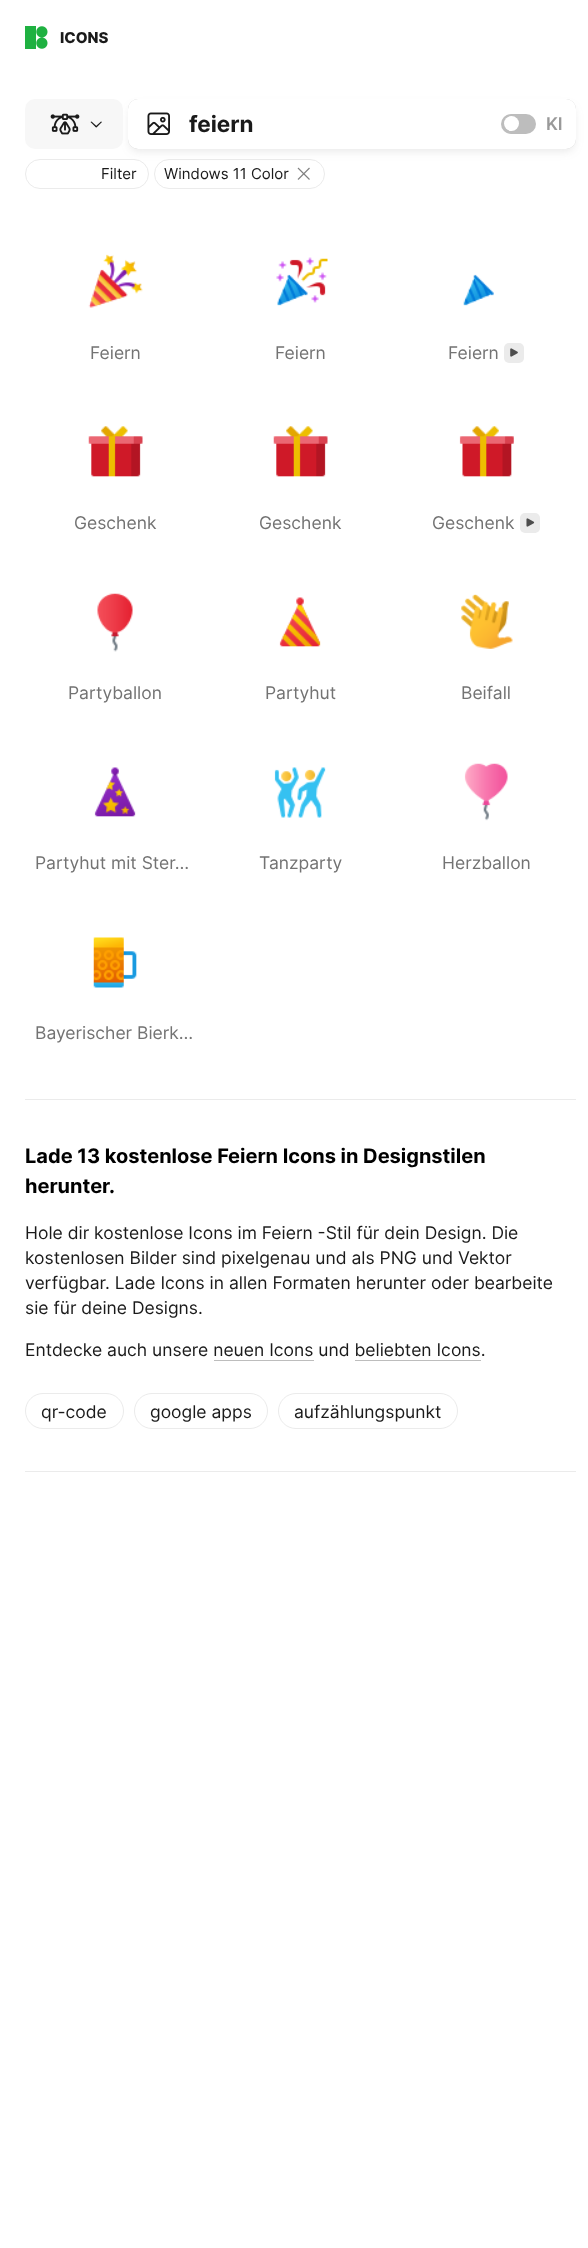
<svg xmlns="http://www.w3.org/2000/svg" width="588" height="2248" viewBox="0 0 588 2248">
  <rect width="100%" height="100%" fill="rgb(255,255,255)"/>
  <image x="25" y="26" width="23" height="23" href="pic1.png"/>
  <text x="60" y="43" font-family="Inter" font-size="15" font-weight="800" fill="rgb(26,26,26)">ICONS</text>
  <rect x="25.5" y="159.5" width="123" height="29" rx="14.5" fill="none" stroke="rgb(235,235,235)"/>
  <rect x="154.5" y="159.5" width="170" height="29" rx="14.5" fill="none" stroke="rgb(235,235,235)"/>
  <rect x="130" y="106" width="444" height="45" rx="8" fill="rgba(96,96,96,0.15)" filter="blur(5px)"/>
  <rect x="25" y="99" width="98" height="50" rx="10" fill="rgb(247,247,247)"/>
  <image x="50" y="113" width="30" height="22" href="pic2.png"/>
  <path d="M91.5 121.5L97 126.5L96 127.5L90.5 122Z" fill="rgb(26,26,26)"/>
  <path d="M95.5 126.5L101 121.5L102 122L96.5 127.5Z" fill="rgb(26,26,26)"/>
  <rect x="128" y="99" width="448" height="50" rx="10" fill="rgba(96,96,96,0.31)" filter="blur(0.5px)"/>
  <rect x="128" y="99" width="448" height="50" rx="10" fill="rgb(255,255,255)"/>
  <image x="147" y="112" width="23" height="23" href="pic3.png"/>
  <text x="189" y="132" font-family="Inter" font-size="22.5" font-weight="bold" fill="rgb(26,26,26)">feiern</text>
  <rect x="501" y="114" width="35" height="20" rx="10" fill="rgb(189,189,189)"/>
  <circle cx="511.5" cy="123.5" r="7.5" fill="rgb(255,255,255)"/>
  <text x="546" y="130" font-family="Inter" font-size="17.5" font-weight="600" fill="rgb(153,153,153)">KI</text>
  <g font-family="Inter" font-size="15" fill="rgb(26,26,26)">
    <text x="101" y="179">Filter</text>
    <text x="164" y="179">Windows 11 Color</text>
  </g>
  <image x="297" y="167" width="13" height="13" href="pic4.png"/>
  <image x="88" y="254" width="55" height="54" href="pic5.png"/>
  <text x="90" y="359" font-family="Inter" font-size="17.5" fill="rgb(115,115,115)">Feiern</text>
  <image x="276" y="257" width="52" height="49" href="pic6.png"/>
  <text x="275" y="359" font-family="Inter" font-size="17.5" fill="rgb(115,115,115)">Feiern</text>
  <image x="463" y="274" width="31" height="32" href="pic7.png"/>
  <text x="448" y="359" font-family="Inter" font-size="17.5" fill="rgb(115,115,115)">Feiern</text>
  <rect x="504" y="343" width="20" height="20" rx="5" fill="rgb(235,235,235)"/>
  <image x="510" y="348" width="8" height="9" href="pic8.png"/>
  <image x="88" y="426" width="55" height="51" href="pic9.png"/>
  <text x="74" y="529" font-family="Inter" font-size="17.5" fill="rgb(115,115,115)">Geschenk</text>
  <image x="273" y="426" width="55" height="51" href="pic10.png"/>
  <text x="259" y="529" font-family="Inter" font-size="17.5" fill="rgb(115,115,115)">Geschenk</text>
  <image x="459" y="426" width="55" height="51" href="pic11.png"/>
  <text x="432" y="529" font-family="Inter" font-size="17.5" fill="rgb(115,115,115)">Geschenk</text>
  <rect x="520" y="513" width="20" height="20" rx="5" fill="rgb(235,235,235)"/>
  <image x="526" y="518" width="9" height="9" href="pic12.png"/>
  <image x="97" y="593" width="36" height="59" href="pic13.png"/>
  <text x="68" y="699" font-family="Inter" font-size="17.5" fill="rgb(115,115,115)">Partyballon</text>
  <image x="279" y="597" width="42" height="50" href="pic14.png"/>
  <text x="265" y="699" font-family="Inter" font-size="17.5" fill="rgb(115,115,115)">Partyhut</text>
  <image x="461" y="594" width="52" height="55" href="pic15.png"/>
  <text x="461" y="699" font-family="Inter" font-size="17.5" fill="rgb(115,115,115)">Beifall</text>
  <image x="94" y="767" width="42" height="50" href="pic16.png"/>
  <text x="35" y="869" font-family="Inter" font-size="17.5" fill="rgb(115,115,115)">Partyhut mit Ster…</text>
  <image x="274" y="767" width="52" height="51" href="pic17.png"/>
  <text x="259" y="869" font-family="Inter" font-size="17.5" fill="rgb(115,115,115)">Tanzparty</text>
  <image x="464" y="763" width="44" height="58" href="pic18.png"/>
  <text x="442" y="869" font-family="Inter" font-size="17.5" fill="rgb(115,115,115)">Herzballon</text>
  <image x="93" y="937" width="44" height="51" href="pic19.png"/>
  <text x="35" y="1039" font-family="Inter" font-size="17.5" fill="rgb(115,115,115)">Bayerischer Bierk…</text>
  <rect x="25" y="1099" width="551" height="1" fill="rgb(235,235,235)"/>
  <rect x="25" y="1471" width="551" height="1" fill="rgb(235,235,235)"/>
  <g font-family="Inter" font-size="20" font-weight="bold" fill="rgb(0,0,0)">
    <text>
      <tspan x="25" y="1163">Lade 13 kostenlose Feiern Icons in Designstilen</tspan>
      <tspan x="25" y="1193">herunter.</tspan>
    </text>
  </g>
  <g font-family="Inter" font-size="17.5" fill="rgb(26,26,26)">
    <text>
      <tspan x="25" y="1239">Hole dir kostenlose Icons im Feiern -Stil für dein Design. Die</tspan>
      <tspan x="25" y="1264">kostenlosen Bilder sind pixelgenau und als PNG und Vektor</tspan>
      <tspan x="25" y="1289">verfügbar. Lade Icons in allen Formaten herunter oder bearbeite</tspan>
      <tspan x="25" y="1314">sie für deine Designs.</tspan>
    </text>
    <text x="25" y="1356">Entdecke auch unsere neuen Icons und beliebten Icons.</text>
  </g>
  <rect x="214" y="1360" width="100" height="1" fill="rgb(189,189,189)"/>
  <rect x="355" y="1360" width="126" height="1" fill="rgb(189,189,189)"/>
  <rect x="25.5" y="1393.5" width="98" height="35" rx="17.5" fill="none" stroke="rgb(235,235,235)"/>
  <text x="41" y="1418" font-family="Inter" font-size="17.5" fill="rgb(26,26,26)">qr-code</text>
  <rect x="134.5" y="1393.5" width="133" height="35" rx="17.5" fill="none" stroke="rgb(235,235,235)"/>
  <text x="150" y="1418" font-family="Inter" font-size="17.5" fill="rgb(26,26,26)">google apps</text>
  <rect x="278.5" y="1393.5" width="179" height="35" rx="17.5" fill="none" stroke="rgb(235,235,235)"/>
  <text x="294" y="1418" font-family="Inter" font-size="17.5" fill="rgb(26,26,26)">aufzählungspunkt</text>
</svg>
